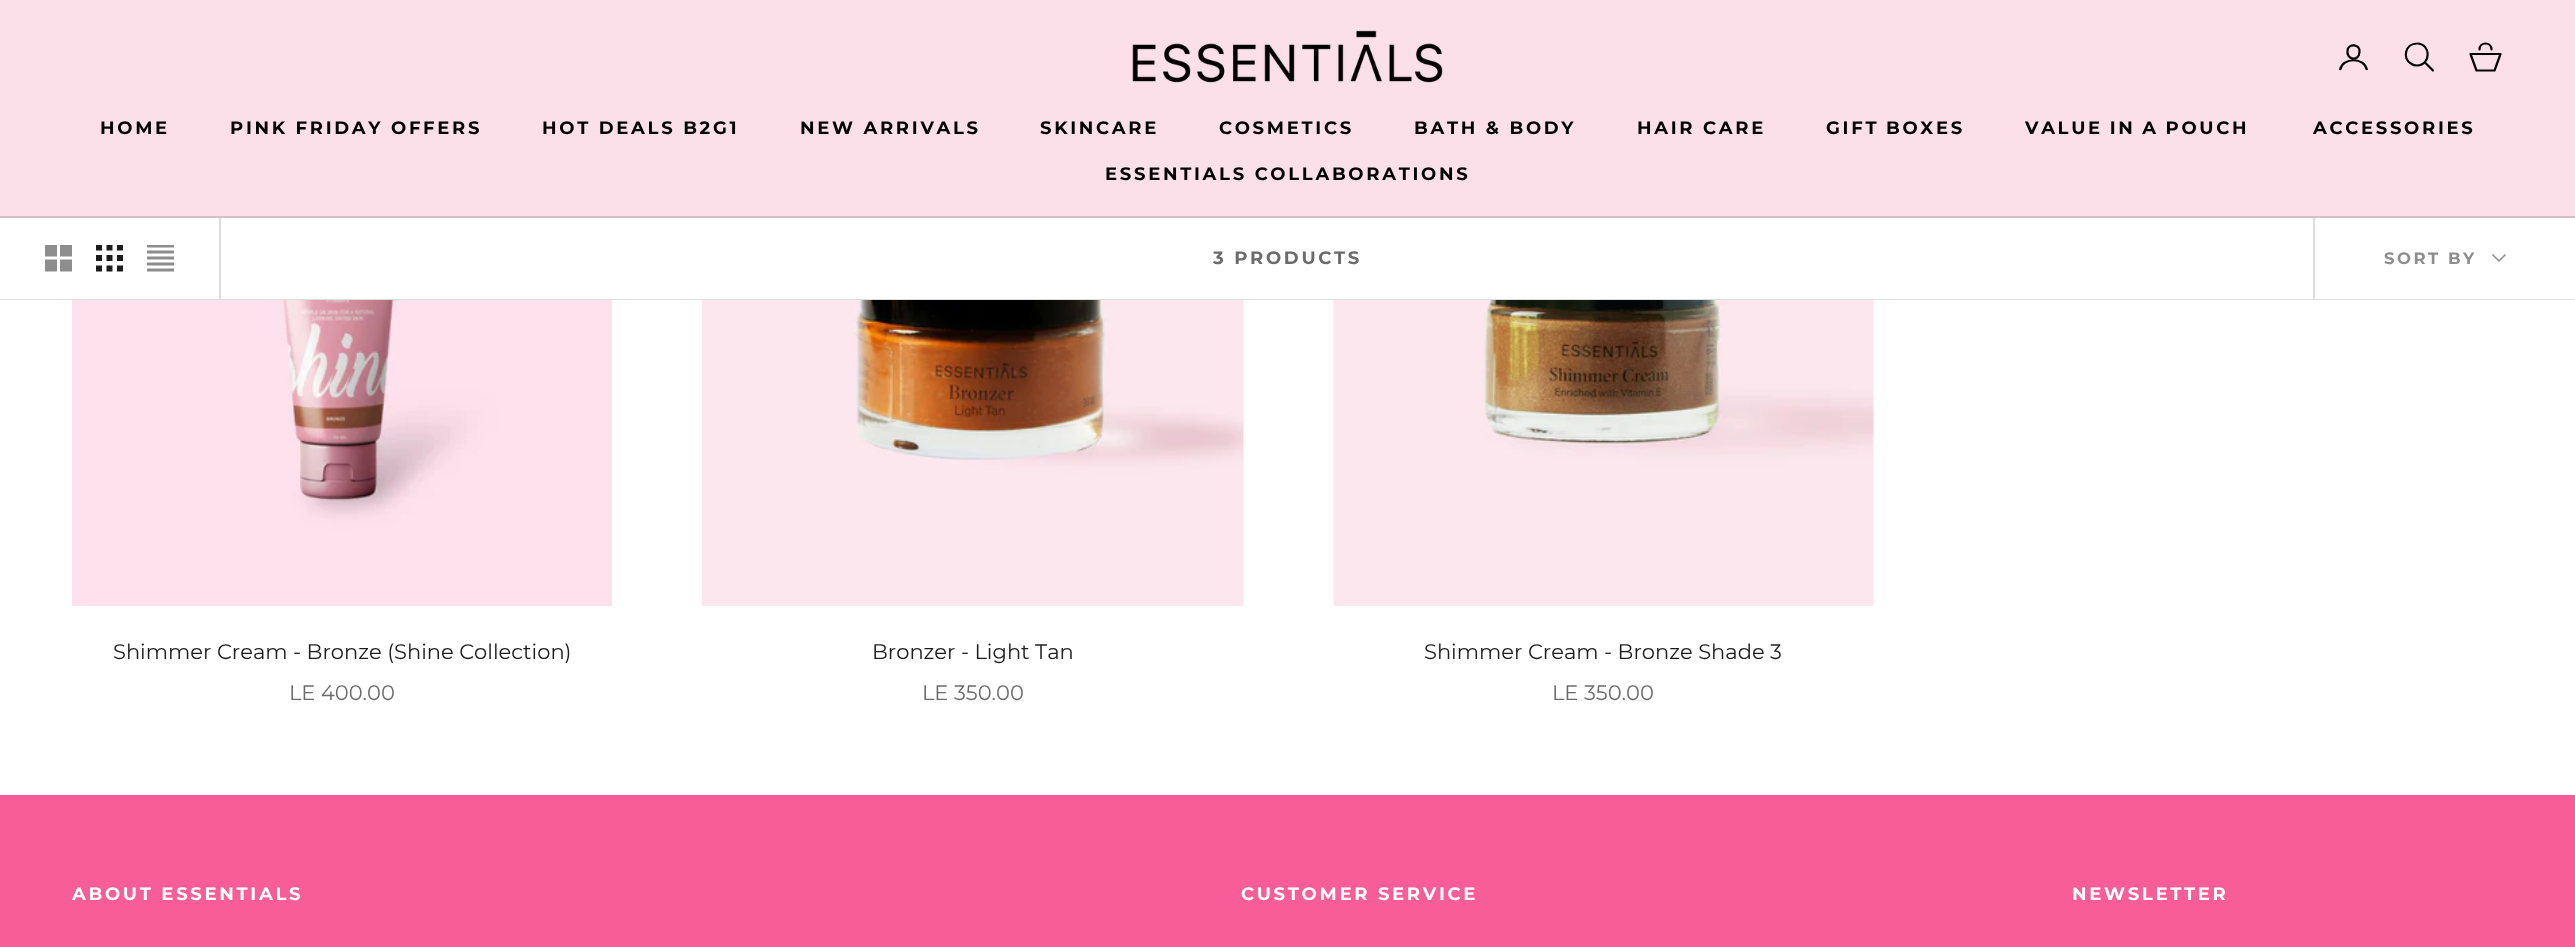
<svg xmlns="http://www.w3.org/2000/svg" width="2575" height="947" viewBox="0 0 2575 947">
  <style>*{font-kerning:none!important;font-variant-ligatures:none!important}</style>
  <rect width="100%" height="100%" fill="rgb(255,255,255)"/>
  <rect x="0" y="0" width="2575" height="216" fill="rgb(251,224,234)"/>
  <rect x="0" y="216" width="2575" height="2" fill="rgb(213,190,199)"/>
  <image x="1132" y="30" width="311" height="53" href="pic1.png"/>
  <path d="M2359.5 52C2359 62 2346 60 2347.5 50.5C2348.5 43 2360.5 44 2359.5 52Z" fill="none" stroke="rgb(0,0,0)" stroke-width="2.2" stroke-linecap="round" stroke-linejoin="round"/>
  <path d="M2340 70C2342.5 57 2364.5 57 2367 70" fill="none" stroke="rgb(0,0,0)" stroke-width="2.2"/>
  <path d="M2417 43.5C2405.5 43.5 2401.5 58.5 2411.5 64C2413 65 2415 65.5 2417 65.5C2431.5 65 2431 43.5 2417 43.5Z" fill="none" stroke="rgb(0,0,0)" stroke-width="2.2"/>
  <path d="M2425.5 63L2433 70.5" fill="none" stroke="rgb(0,0,0)" stroke-width="2.2" stroke-linecap="round"/>
  <path d="M2470.5 54H2500.5L2494.5 70.5H2476.5ZM2491.5 49.5C2491.5 41.5 2479.5 41.5 2479.5 49.5" fill="none" stroke="rgb(0,0,0)" stroke-width="2.2" stroke-linecap="round" stroke-linejoin="round"/>
  <g font-family="Montserrat" font-size="18" font-weight="bold" letter-spacing="2.7" fill="rgb(0,0,0)">
    <text x="100" y="134">HOME</text>
    <text x="230" y="134">PINK FRIDAY OFFERS</text>
    <text x="542" y="134">HOT DEALS B2G1</text>
    <text x="800" y="134">NEW ARRIVALS</text>
    <text x="1040" y="134">SKINCARE</text>
    <text x="1219" y="134">COSMETICS</text>
    <text x="1414" y="134">BATH &amp; BODY</text>
    <text x="1637" y="134">HAIR CARE</text>
    <text x="1826" y="134" word-spacing="-1">GIFT BOXES</text>
    <text x="2025" y="134" word-spacing="-1">VALUE IN A POUCH</text>
    <text x="2313" y="134">ACCESSORIES</text>
    <text x="1105" y="180">ESSENTIALS COLLABORATIONS</text>
  </g>
  <path d="M0 298V300H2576V219V298Z" fill="rgb(221,221,221)"/>
  <rect x="0" y="298" width="2575" height="1" fill="rgb(255,255,255)"/>
  <rect x="219" y="218" width="2" height="81" fill="rgb(221,221,221)"/>
  <image x="45" y="245" width="27" height="27" href="pic2.png"/>
  <image x="96" y="245" width="27" height="27" href="pic3.png"/>
  <image x="147" y="245" width="27" height="27" href="pic4.png"/>
  <text x="1213" y="264" font-family="Montserrat" font-size="18" font-weight="bold" letter-spacing="2.7" fill="rgb(107,107,107)">3 PRODUCTS</text>
  <rect x="2313" y="218" width="2" height="81" fill="rgb(221,221,221)"/>
  <text x="2384" y="264" font-family="Montserrat" font-size="16.5" font-weight="bold" letter-spacing="2.5" fill="rgb(142,142,142)">SORT BY</text>
  <path d="M2493 255L2499 261L2505 255" fill="none" stroke="rgb(142,142,142)" stroke-width="1.5" stroke-linecap="square"/>
  <image x="72" y="300" width="540" height="306" href="pic5.png"/>
  <text x="113" y="659" font-family="Montserrat" font-size="21" fill="rgb(28,28,28)">Shimmer Cream - Bronze (Shine Collection)</text>
  <text x="289" y="700" font-family="Montserrat" font-size="21" fill="rgb(107,107,107)">LE 400.00</text>
  <image x="702" y="300" width="542" height="306" href="pic6.png"/>
  <text x="872" y="659" font-family="Montserrat" font-size="21" fill="rgb(28,28,28)">Bronzer - Light Tan</text>
  <text x="922" y="700" font-family="Montserrat" font-size="21" fill="rgb(107,107,107)">LE 350.00</text>
  <image x="1333" y="300" width="541" height="306" href="pic7.png"/>
  <text x="1424" y="659" font-family="Montserrat" font-size="21" fill="rgb(28,28,28)">Shimmer Cream - Bronze Shade 3</text>
  <text x="1552" y="700" font-family="Montserrat" font-size="21" fill="rgb(107,107,107)">LE 350.00</text>
  <rect x="0" y="795" width="2575" height="152" fill="rgb(247,93,150)"/>
  <g font-family="Montserrat" font-size="18" font-weight="bold" letter-spacing="2.7" fill="rgb(255,255,255)">
    <text x="72" y="900">ABOUT ESSENTIALS</text>
    <text x="1241" y="900">CUSTOMER SERVICE</text>
    <text x="2072" y="900">NEWSLETTER</text>
  </g>
</svg>
